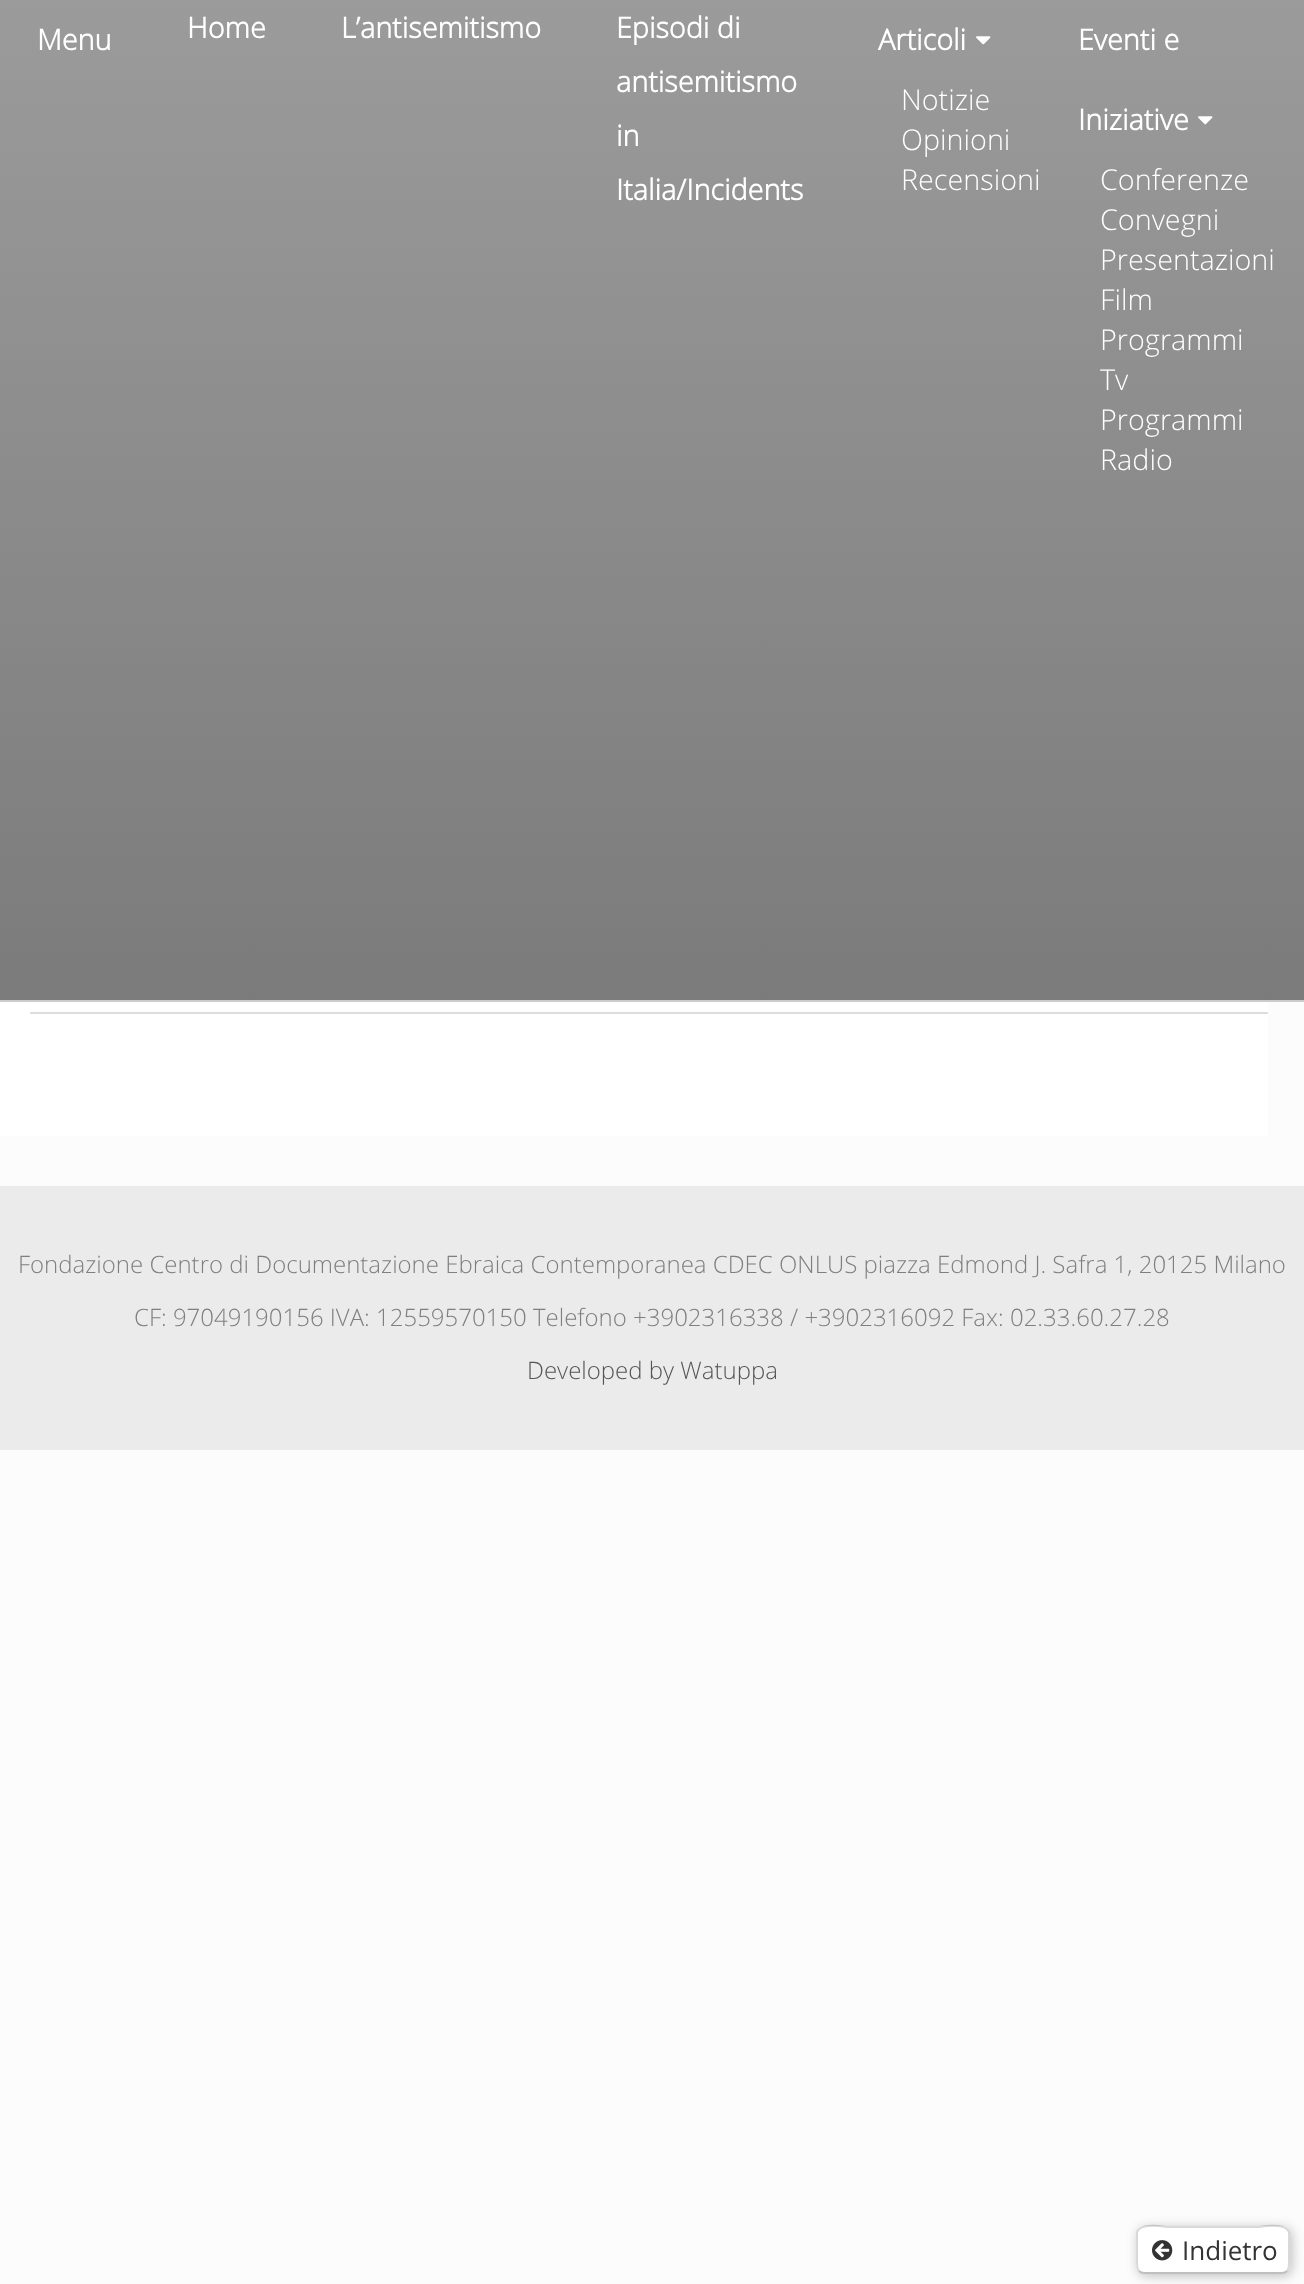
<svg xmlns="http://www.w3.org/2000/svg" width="1304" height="2284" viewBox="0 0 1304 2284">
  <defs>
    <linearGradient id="g1" gradientUnits="userSpaceOnUse" x1="652" y1="0" x2="652" y2="1000"><stop offset="0" stop-color="rgb(155,155,155)"/><stop offset="1" stop-color="rgb(123,123,123)"/></linearGradient>
  </defs>
  <rect width="100%" height="100%" fill="rgb(252,252,252)"/>
  <rect x="0" y="0" width="1304" height="1000" fill="url(#g1)"/>
  <rect x="0" y="1000" width="1304" height="2" fill="rgb(203,203,203)"/>
  <g font-family="Open Sans" font-size="28.75" font-weight="bold" fill="rgb(255,255,255)">
    <text x="37" y="50">Menu</text>
    <text x="187" y="38">Home</text>
    <text x="341" y="38">L’antisemitismo</text>
    <text>
      <tspan x="616" y="38">Episodi di</tspan>
      <tspan x="616" y="92">antisemitismo</tspan>
      <tspan x="616" y="146">in</tspan>
      <tspan x="616" y="200">Italia/Incidents</tspan>
    </text>
    <text x="878" y="50">Articoli</text>
  </g>
  <image x="976" y="36" width="15" height="9" href="pic1.png"/>
  <g font-family="Open Sans" font-size="28.75" font-weight="300" fill="rgb(255,255,255)">
    <text>
      <tspan x="901" y="110">Notizie</tspan>
      <tspan x="901" y="150">Opinioni</tspan>
      <tspan x="901" y="190">Recensioni</tspan>
    </text>
  </g>
  <g font-family="Open Sans" font-size="28.75" font-weight="bold" fill="rgb(255,255,255)">
    <text x="1078" y="50">Eventi e</text>
    <text x="1078" y="130">Iniziative</text>
  </g>
  <image x="1198" y="116" width="15" height="9" href="pic2.png"/>
  <g font-family="Open Sans" font-size="28.75" font-weight="300" fill="rgb(255,255,255)">
    <text>
      <tspan x="1100" y="190">Conferenze</tspan>
      <tspan x="1100" y="230">Convegni</tspan>
      <tspan x="1100" y="270">Presentazioni</tspan>
      <tspan x="1100" y="310">Film</tspan>
      <tspan x="1100" y="350">Programmi</tspan>
      <tspan x="1100" y="390">Tv</tspan>
      <tspan x="1100" y="430">Programmi</tspan>
      <tspan x="1100" y="470">Radio</tspan>
    </text>
  </g>
  <rect x="0" y="1186" width="1304" height="264" fill="rgb(235,235,235)"/>
  <g font-family="Open Sans" font-size="24" font-weight="300" fill="rgb(127,127,127)">
    <text x="18" y="1273">Fondazione Centro di Documentazione Ebraica Contemporanea CDEC ONLUS piazza Edmond J. Safra 1, 20125 Milano</text>
    <text x="134" y="1326">CF: 97049190156 IVA: 12559570150 Telefono +3902316338 / +3902316092 Fax: 02.33.60.27.28</text>
  </g>
  <text x="527" y="1379" font-family="Open Sans" font-size="24" font-weight="300" fill="rgb(85,85,85)">Developed by Watuppa</text>
  <rect x="0" y="1002" width="1268" height="134" fill="rgb(255,255,255)"/>
  <rect x="30" y="1012" width="1238" height="2" fill="rgb(221,221,221)"/>
  <rect x="1138" y="2228" width="154" height="48" rx="8" fill="rgba(50,50,50,0.3)" filter="blur(6px)"/>
  <rect x="1136" y="2226" width="154" height="48" rx="8" fill="rgb(255,255,255)"/>
  <path d="M1287 2271C1285.5 2272.5 1284 2273 1282 2273H1144C1142 2273 1140.5 2272.5 1139 2271" fill="none" stroke="rgba(0,0,0,0.25)" stroke-width="2"/>
  <path d="M1139 2271C1136.5 2268 1137 2264 1137 2260.5V2232.5C1139.5 2221.5 1165.5 2227 1167 2227H1259C1260.5 2227 1286.5 2221.5 1289 2232.5V2260.5C1289 2264 1289.5 2268 1287 2271" fill="none" stroke="rgba(0,0,0,0.15)" stroke-width="2"/>
  <image x="1152" y="2240" width="21" height="21" href="pic3.png"/>
  <text x="1182" y="2260" font-family="Open Sans" font-size="26" fill="rgb(51,51,51)">Indietro</text>
</svg>
